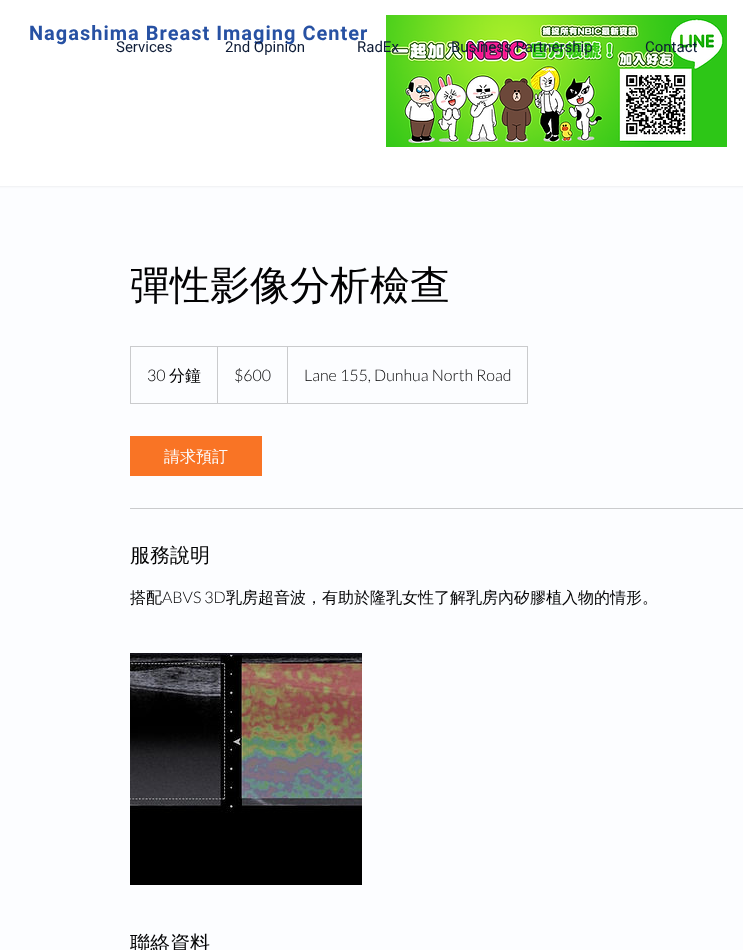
<svg xmlns="http://www.w3.org/2000/svg" width="743" height="950" viewBox="0 0 743 950">
  <rect width="100%" height="100%" fill="rgb(252,253,255)"/>
  <rect x="-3" y="0" width="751" height="186" fill="rgba(0,0,0,0.1)" filter="blur(1.5px)"/>
  <rect x="0" y="0" width="743" height="186" fill="rgb(255,255,255)"/>
  <image x="386" y="15" width="341" height="132" href="pic1.png"/>
  <text x="29" y="40" font-family="Roboto" font-size="20" font-weight="bold" letter-spacing="1" fill="rgb(39,81,163)">Nagashima Breast Imaging Center</text>
  <g font-family="Roboto" font-size="15" fill="rgb(13,27,54)">
    <text x="116" y="52">Services</text>
    <text x="225" y="52">2nd Opinion</text>
    <text x="357" y="52">RadEx</text>
    <text x="451" y="52">Business Partnership</text>
    <text x="645" y="52">Contact</text>
  </g>
  <text x="130" y="299" font-family="WenQuanYi Zen Hei" font-size="40" font-weight="500" fill="rgb(2,2,3)">彈性影像分析檢查</text>
  <rect x="130.5" y="346.5" width="397" height="57" fill="none" stroke="rgb(202,203,205)"/>
  <text x="147" y="381" font-family="Lato" font-size="16" font-weight="300" fill="rgb(2,2,3)">30</text>
  <text x="169" y="381" font-family="WenQuanYi Zen Hei" font-size="16" font-weight="500" fill="rgb(2,2,3)">分鐘</text>
  <path d="M217 403V346L218 347V403Z" fill="rgb(202,203,205)"/>
  <text x="234" y="381" font-family="Lato" font-size="16" font-weight="300" fill="rgb(2,2,3)">$600</text>
  <path d="M287 403V346L288 347V403Z" fill="rgb(202,203,205)"/>
  <text x="304" y="381" font-family="Lato" font-size="16" font-weight="300" fill="rgb(2,2,3)">Lane 155, Dunhua North Road</text>
  <rect x="130" y="436" width="132" height="40" fill="rgb(249,116,37)"/>
  <text x="164" y="462" font-family="WenQuanYi Zen Hei" font-size="16" font-weight="500" fill="rgb(252,253,255)">請求預訂</text>
  <rect x="130" y="508" width="613" height="1" fill="rgb(202,203,205)"/>
  <text x="130" y="562" font-family="WenQuanYi Zen Hei" font-size="20" font-weight="500" fill="rgb(2,2,3)">服務說明</text>
  <text x="130" y="603" font-family="WenQuanYi Zen Hei" font-size="16" font-weight="500" fill="rgb(2,2,3)">搭配</text>
  <text x="162" y="603" font-family="Lato" font-size="16" font-weight="300" fill="rgb(2,2,3)">ABVS 3D</text>
  <text x="226" y="603" font-family="WenQuanYi Zen Hei" font-size="16" font-weight="500" fill="rgb(2,2,3)">乳房超音波，有助於隆乳女性了解乳房內矽膠植入物的情形。</text>
  <image x="130" y="653" width="232" height="160" href="pic2.png"/>
  <image x="130" y="813" width="232" height="72" href="pic3.png"/>
  <text x="130" y="950" font-family="WenQuanYi Zen Hei" font-size="20" font-weight="500" fill="rgb(2,2,3)">聯絡資料</text>
</svg>
